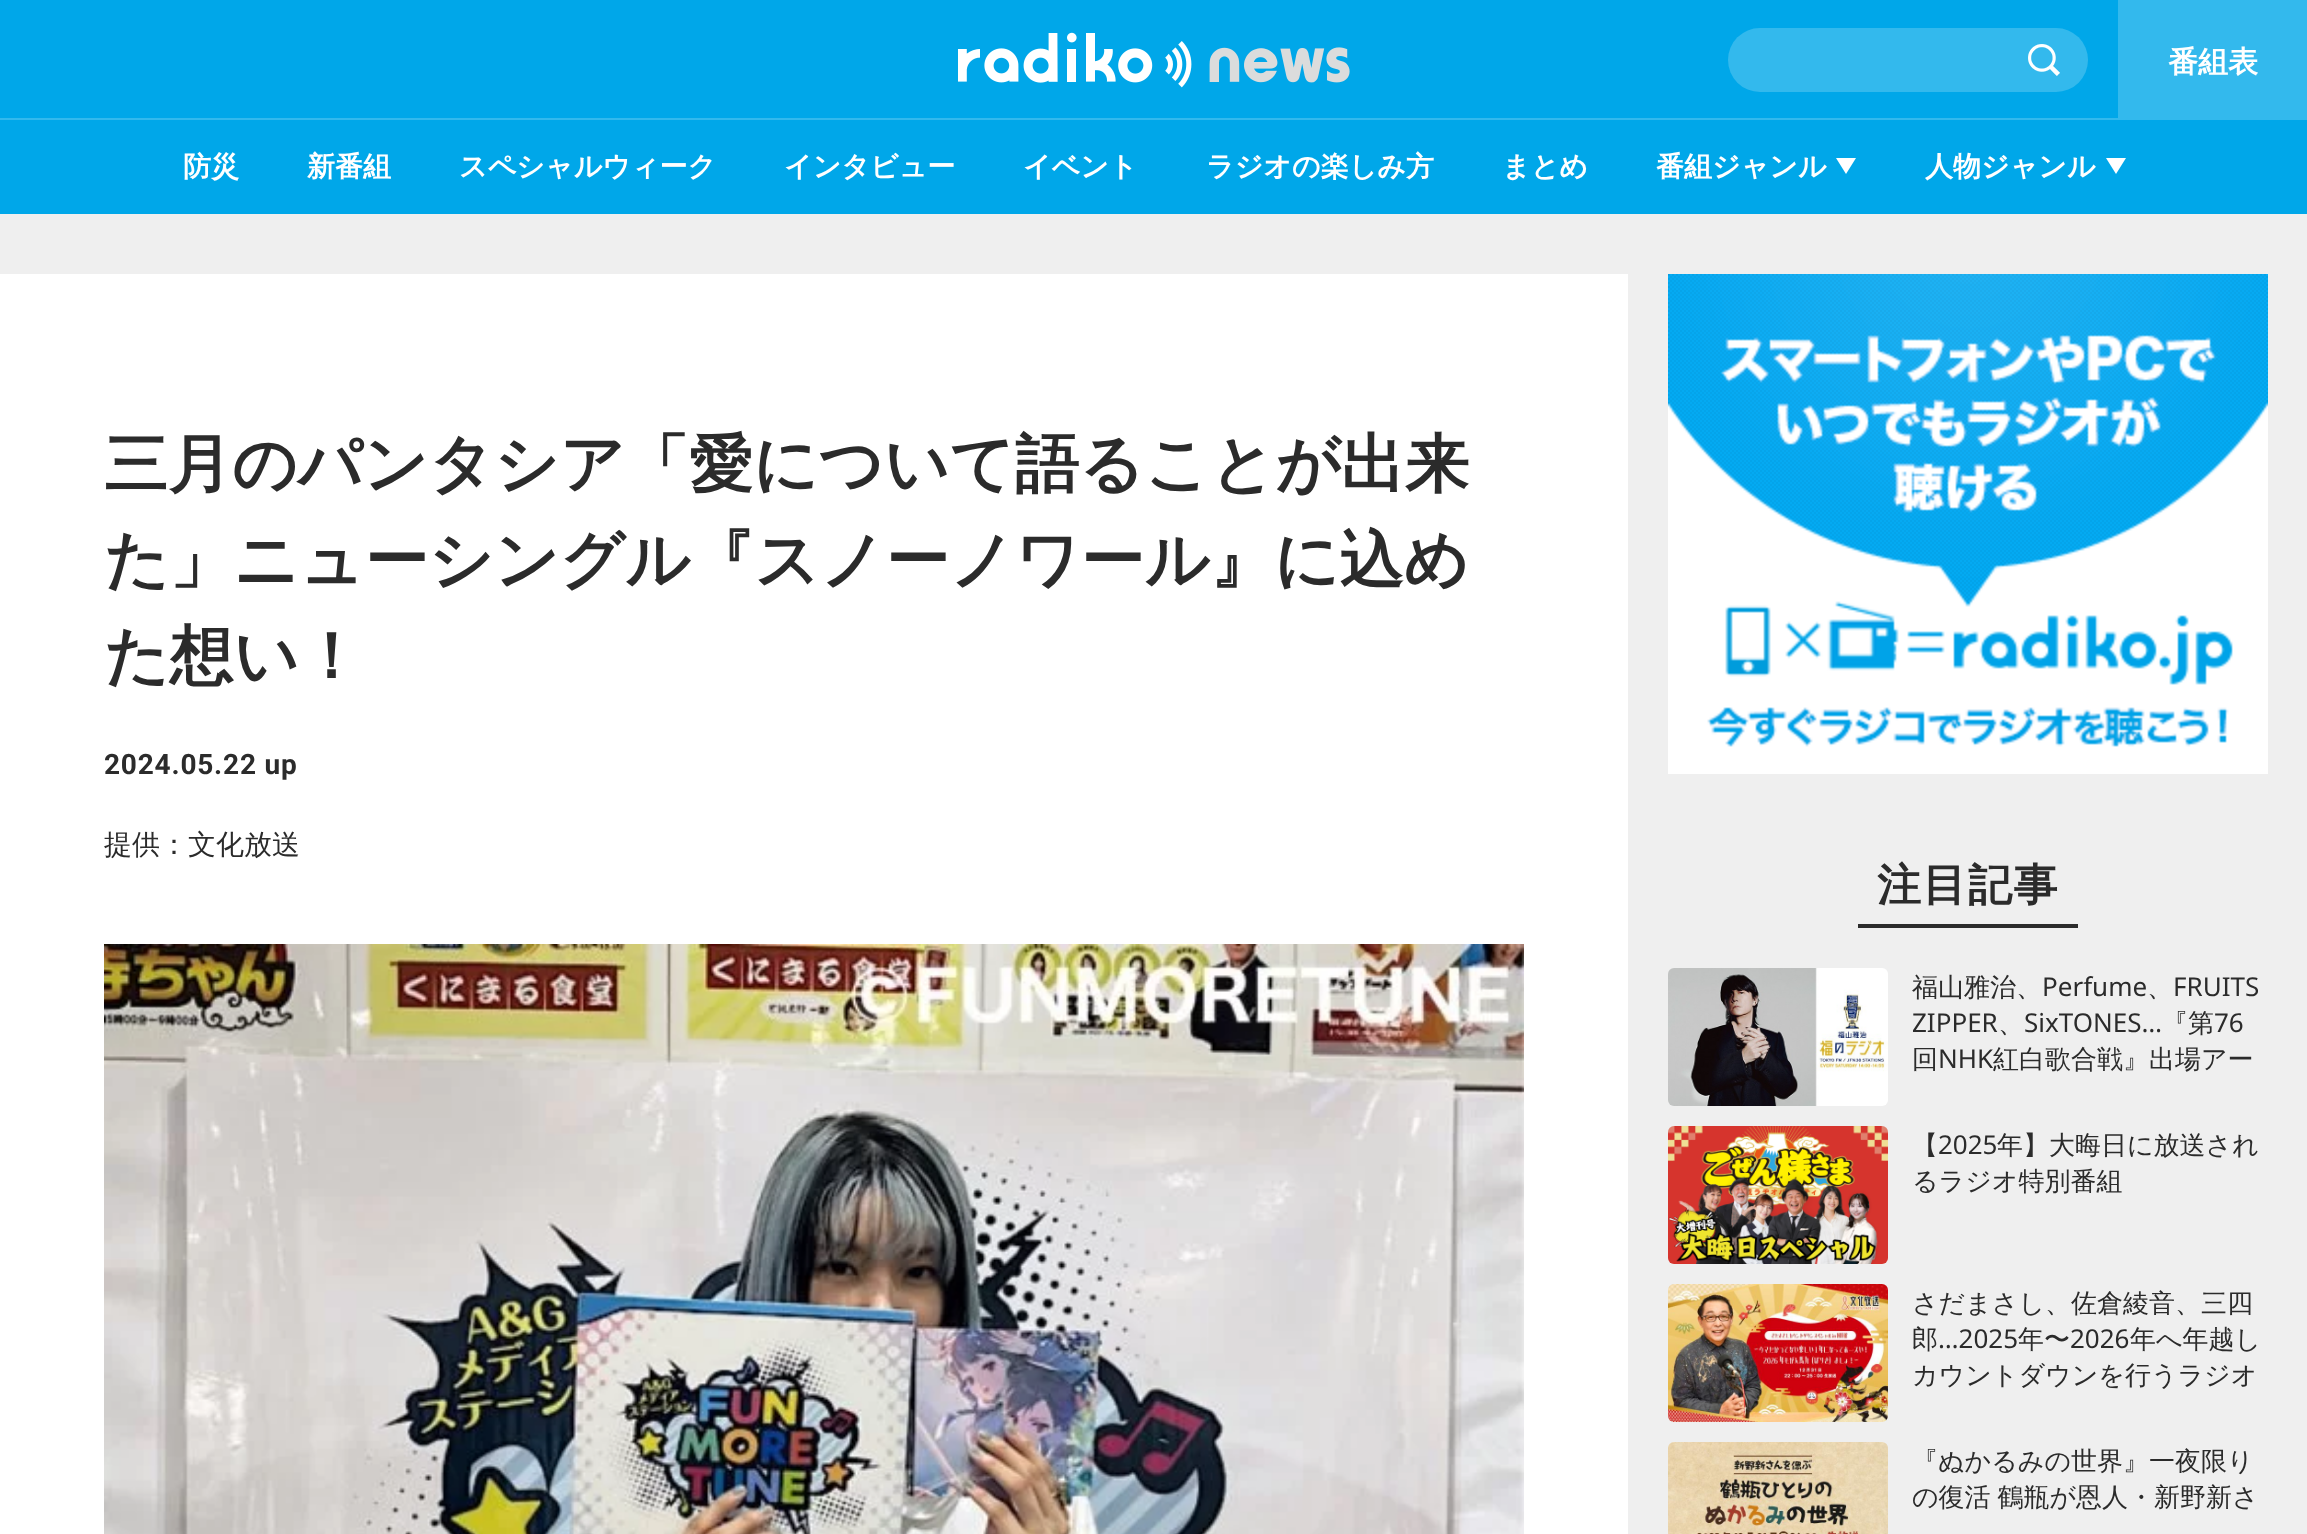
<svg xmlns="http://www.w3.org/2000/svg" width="2307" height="1534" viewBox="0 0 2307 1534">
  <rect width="100%" height="100%" fill="rgb(239,239,239)"/>
  <rect x="0" y="0" width="2307" height="214" fill="rgb(0,167,233)"/>
  <rect x="0" y="118" width="2118" height="2" fill="rgb(51,185,237)"/>
  <image x="958" y="32" width="392" height="56" href="pic1.png"/>
  <rect x="1728" y="28" width="360" height="64" rx="32" fill="rgb(51,185,237)"/>
  <image x="2028" y="44" width="32" height="32" href="pic2.png"/>
  <rect x="2118" y="0" width="189" height="120" fill="rgb(51,185,237)"/>
  <text x="2168" y="72" font-family="WenQuanYi Zen Hei" font-size="30" font-weight="bold" fill="rgb(255,255,255)">番組表</text>
  <g font-family="WenQuanYi Zen Hei" font-size="28" font-weight="bold" fill="rgb(255,255,255)">
    <text x="183" y="176">防災</text>
    <text x="307" y="176">新番組</text>
    <text x="459" y="176">スペシャルウィーク</text>
    <text x="784" y="176">インタビュー</text>
    <text x="1023" y="176">イベント</text>
    <text x="1206" y="176">ラジオの楽しみ方</text>
    <text x="1502" y="176">まとめ</text>
    <text x="1656" y="176">番組ジャンル</text>
  </g>
  <path d="M1836 158H1856L1846 174Z" fill="rgb(255,255,255)"/>
  <text x="1925" y="176" font-family="WenQuanYi Zen Hei" font-size="28" font-weight="bold" fill="rgb(255,255,255)">人物ジャンル</text>
  <path d="M2106 158H2126L2116 174Z" fill="rgb(255,255,255)"/>
  <rect x="0" y="274" width="1628" height="1260" fill="rgb(255,255,255)"/>
  <g font-family="WenQuanYi Zen Hei" font-size="64" font-weight="bold" fill="rgb(43,43,43)">
    <text>
      <tspan x="104" y="486">三月のパンタシア「愛について語ることが出来</tspan>
      <tspan x="104" y="582">た」ニューシングル『スノーノワール』に込め</tspan>
      <tspan x="104" y="678">た想い！</tspan>
    </text>
  </g>
  <text x="104" y="774" font-family="Roboto" font-size="28" font-weight="bold" letter-spacing="0.8" fill="rgb(43,43,43)">2024.05.22 up</text>
  <text x="104" y="854" font-family="WenQuanYi Zen Hei" font-size="28" font-weight="500" fill="rgb(43,43,43)">提供：文化放送</text>
  <image x="104" y="944" width="1420" height="590" href="pic3.png"/>
  <image x="1668" y="274" width="600" height="500" href="pic4.png"/>
  <rect x="1858" y="924" width="220" height="4" fill="rgb(43,43,43)"/>
  <text x="1877" y="900" font-family="WenQuanYi Zen Hei" font-size="44" font-weight="bold" letter-spacing="1.5" fill="rgb(43,43,43)">注目記事</text>
  <image x="1668" y="968" width="220" height="138" href="pic5.png"/>
  <text x="1912" y="996" font-family="WenQuanYi Zen Hei" font-size="26" font-weight="500" fill="rgb(43,43,43)">福山雅治、</text>
  <text x="2042" y="996" font-family="Noto Sans" font-size="26" fill="rgb(43,43,43)">Perfume</text>
  <text x="2147" y="996" font-family="WenQuanYi Zen Hei" font-size="26" font-weight="500" fill="rgb(43,43,43)">、</text>
  <g font-family="Noto Sans" font-size="26" fill="rgb(43,43,43)">
    <text x="2173" y="996">FRUITS</text>
    <text x="1912" y="1032">ZIPPER</text>
  </g>
  <text x="1998" y="1032" font-family="WenQuanYi Zen Hei" font-size="26" font-weight="500" fill="rgb(43,43,43)">、</text>
  <text x="2024" y="1032" font-family="Noto Sans" font-size="26" fill="rgb(43,43,43)">SixTONES…</text>
  <text x="2162" y="1032" font-family="WenQuanYi Zen Hei" font-size="26" font-weight="500" fill="rgb(43,43,43)">『第</text>
  <text x="2214" y="1032" font-family="Noto Sans" font-size="26" fill="rgb(43,43,43)">76</text>
  <text x="1912" y="1068" font-family="WenQuanYi Zen Hei" font-size="26" font-weight="500" fill="rgb(43,43,43)">回</text>
  <text x="1938" y="1068" font-family="Noto Sans" font-size="26" fill="rgb(43,43,43)">NHK</text>
  <text x="1993" y="1068" font-family="WenQuanYi Zen Hei" font-size="26" font-weight="500" fill="rgb(43,43,43)">紅白歌合戦』出場アー</text>
  <image x="1668" y="1126" width="220" height="138" href="pic6.png"/>
  <text x="1912" y="1154" font-family="WenQuanYi Zen Hei" font-size="26" font-weight="500" fill="rgb(43,43,43)">【</text>
  <text x="1938" y="1154" font-family="Noto Sans" font-size="26" fill="rgb(43,43,43)">2025</text>
  <g font-family="WenQuanYi Zen Hei" font-size="26" font-weight="500" fill="rgb(43,43,43)">
    <text x="1997" y="1154">年】大晦日に放送され</text>
    <text x="1912" y="1190">るラジオ特別番組</text>
  </g>
  <image x="1668" y="1284" width="220" height="138" href="pic7.png"/>
  <g font-family="WenQuanYi Zen Hei" font-size="26" font-weight="500" fill="rgb(43,43,43)">
    <text>
      <tspan x="1912" y="1312">さだまさし、佐倉綾音、三四</tspan>
      <tspan x="1912" y="1348">郎</tspan>
    </text>
  </g>
  <text x="1938" y="1348" font-family="Noto Sans" font-size="26" fill="rgb(43,43,43)">…2025</text>
  <text x="2018" y="1348" font-family="WenQuanYi Zen Hei" font-size="26" font-weight="500" fill="rgb(43,43,43)">年〜</text>
  <text x="2070" y="1348" font-family="Noto Sans" font-size="26" fill="rgb(43,43,43)">2026</text>
  <g font-family="WenQuanYi Zen Hei" font-size="26" font-weight="500" fill="rgb(43,43,43)">
    <text x="2130" y="1348">年へ年越し</text>
    <text x="1912" y="1384">カウントダウンを行うラジオ</text>
  </g>
  <image x="1668" y="1442" width="220" height="92" href="pic8.png"/>
  <g font-family="WenQuanYi Zen Hei" font-size="26" font-weight="500" fill="rgb(43,43,43)">
    <text>
      <tspan x="1912" y="1470">『ぬかるみの世界』一夜限り</tspan>
      <tspan x="1912" y="1506" word-spacing="-1">の復活 鶴瓶が恩人・新野新さ</tspan>
    </text>
  </g>
</svg>
